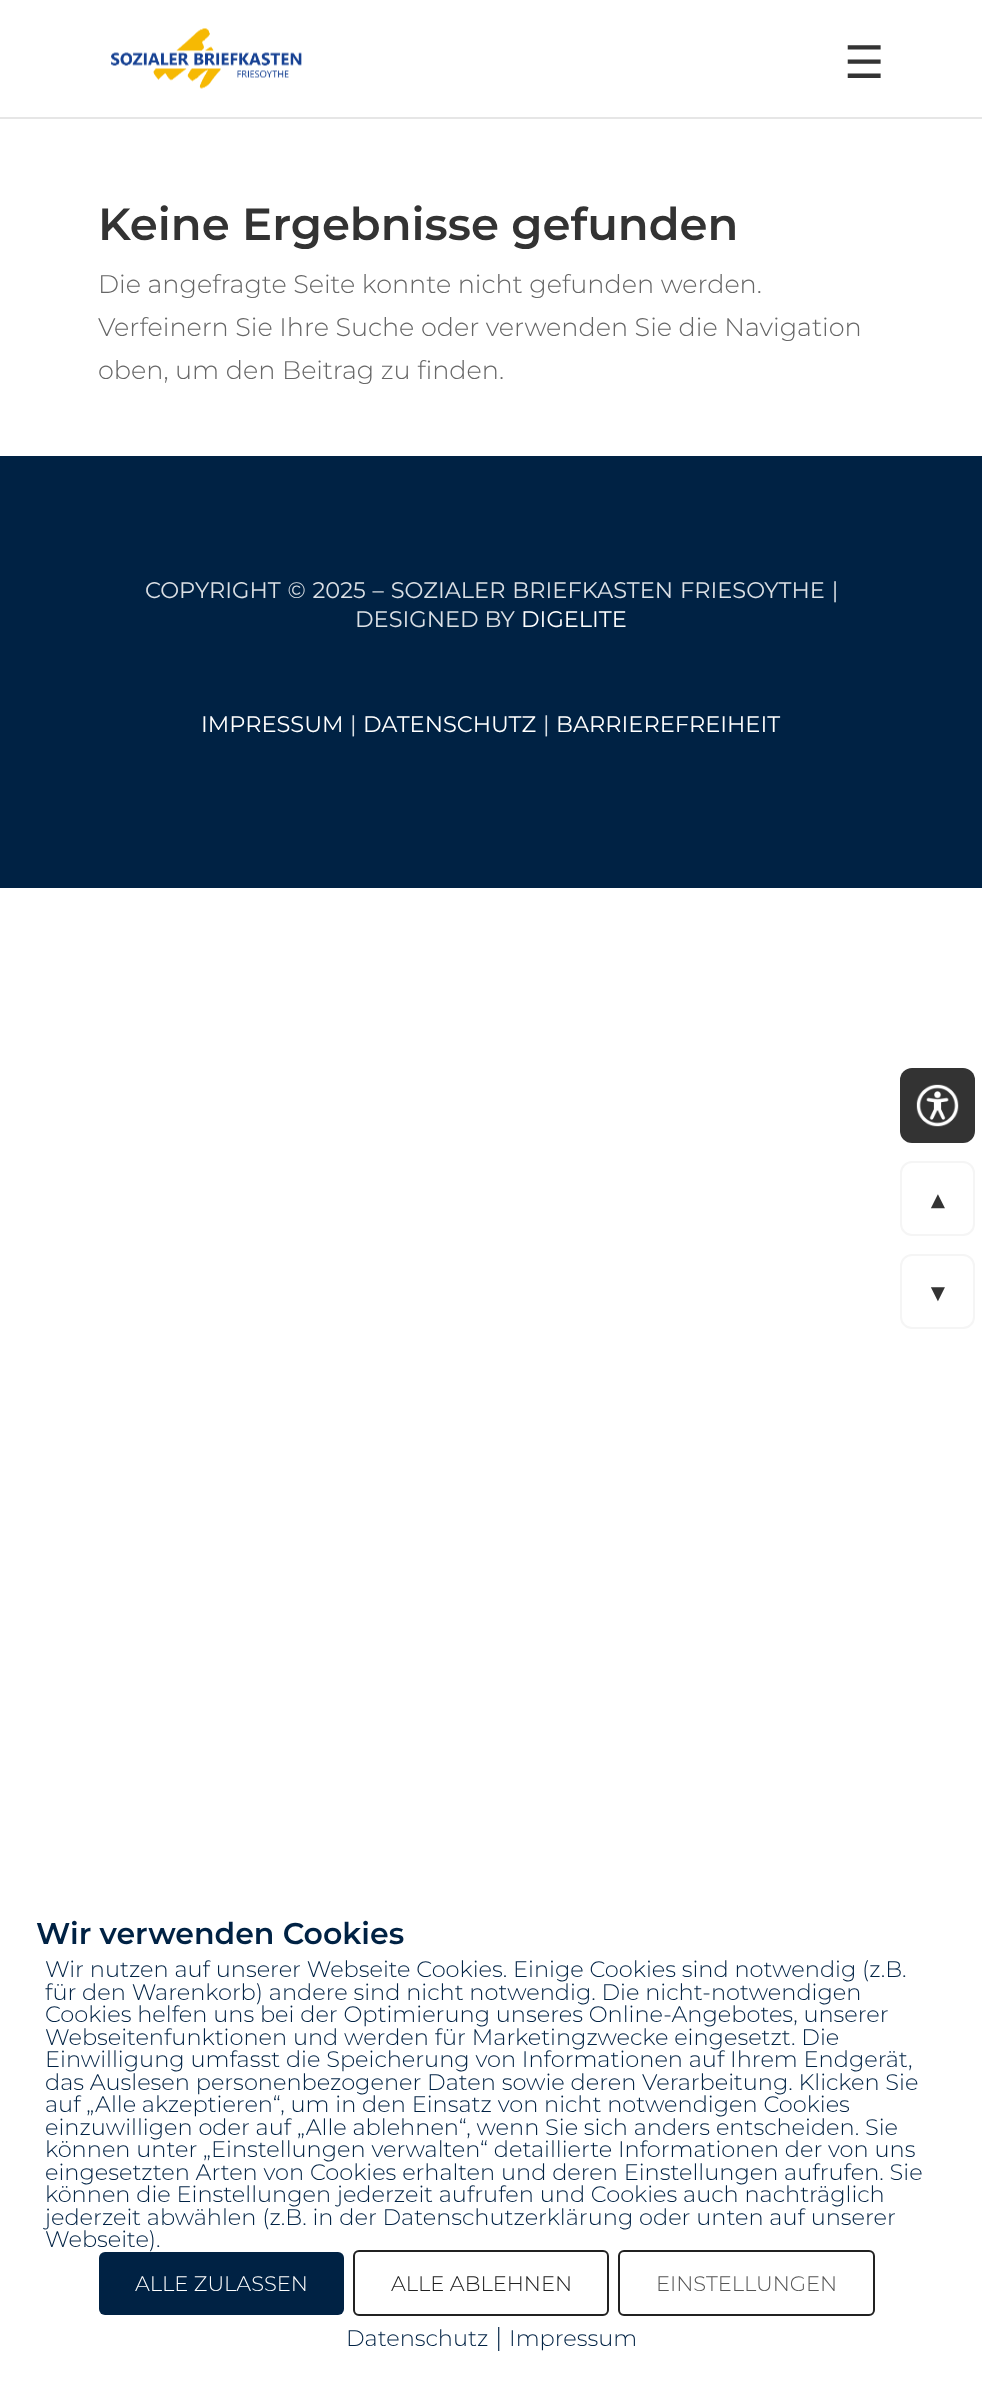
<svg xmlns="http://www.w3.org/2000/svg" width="982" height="2396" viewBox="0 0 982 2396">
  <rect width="100%" height="100%" fill="rgb(255,255,255)"/>
  <path d="M0 117V119H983V2H982V117Z" fill="rgb(230,230,230)"/>
  <image x="111" y="28" width="191" height="61" href="pic1.png"/>
  <text x="844" y="78" font-family="DejaVu Sans" font-size="45" fill="rgb(51,51,51)">☰</text>
  <text x="98" y="240" font-family="Montserrat" font-size="45" font-weight="600" fill="rgb(51,51,51)">Keine Ergebnisse gefunden</text>
  <g font-family="Montserrat" font-size="25.5" font-weight="300" fill="rgb(102,102,102)">
    <text>
      <tspan x="98" y="293">Die angefragte Seite konnte nicht gefunden werden.</tspan>
      <tspan x="98" y="336">Verfeinern Sie Ihre Suche oder verwenden Sie die Navigation</tspan>
      <tspan x="98" y="379">oben, um den Beitrag zu finden.</tspan>
    </text>
  </g>
  <rect x="0" y="456" width="982" height="432" fill="rgb(0,34,68)"/>
  <g font-family="Montserrat" font-size="22.5" fill="rgb(219,224,229)">
    <text x="145" y="598" word-spacing="1">COPYRIGHT © 2025 – SOZIALER BRIEFKASTEN FRIESOYTHE |</text>
    <text x="355" y="627">DESIGNED BY</text>
  </g>
  <g font-family="Montserrat" font-size="22.5" fill="rgb(255,255,255)">
    <text x="521" y="627">DIGELITE</text>
    <text x="201" y="732">IMPRESSUM</text>
  </g>
  <text x="350" y="732" font-family="Montserrat" font-size="22.5" fill="rgb(219,224,229)">|</text>
  <text x="363" y="732" font-family="Montserrat" font-size="22.5" fill="rgb(255,255,255)">DATENSCHUTZ</text>
  <text x="543" y="732" font-family="Montserrat" font-size="22.5" fill="rgb(219,224,229)">|</text>
  <text x="556" y="732" font-family="Montserrat" font-size="22.5" fill="rgb(255,255,255)">BARRIEREFREIHEIT</text>
  <rect x="900" y="1068" width="75" height="75" rx="12" fill="rgb(51,51,51)"/>
  <image x="916" y="1084" width="43" height="43" href="pic2.png"/>
  <rect x="901" y="1162" width="73" height="73" rx="11" fill="none" stroke="rgb(245,245,245)" stroke-width="2"/>
  <text x="928" y="1210" font-family="Montserrat" font-size="33" font-weight="300" fill="rgb(51,51,51)">▲</text>
  <rect x="901" y="1255" width="73" height="73" rx="11" fill="none" stroke="rgb(245,245,245)" stroke-width="2"/>
  <text x="928" y="1303" font-family="Montserrat" font-size="33" font-weight="300" fill="rgb(51,51,51)">▼</text>
  <text x="36" y="1944" font-family="Montserrat" font-size="30" font-weight="600" fill="rgb(0,34,68)">Wir verwenden Cookies</text>
  <g font-family="Montserrat" font-size="22.5" font-weight="300" fill="rgb(0,34,68)">
    <text>
      <tspan x="45" y="1977">Wir nutzen auf unserer Webseite Cookies. Einige Cookies sind notwendig (z.B.</tspan>
      <tspan x="45" y="2000">für den Warenkorb) andere sind nicht notwendig. Die nicht-notwendigen</tspan>
      <tspan x="45" y="2022">Cookies helfen uns bei der Optimierung unseres Online-Angebotes, unserer</tspan>
      <tspan x="45" y="2045">Webseitenfunktionen und werden für Marketingzwecke eingesetzt. Die</tspan>
      <tspan x="45" y="2067">Einwilligung umfasst die Speicherung von Informationen auf Ihrem Endgerät,</tspan>
      <tspan x="45" y="2090">das Auslesen personenbezogener Daten sowie deren Verarbeitung. Klicken Sie</tspan>
      <tspan x="45" y="2112">auf „Alle akzeptieren“, um in den Einsatz von nicht notwendigen Cookies</tspan>
      <tspan x="45" y="2135">einzuwilligen oder auf „Alle ablehnen“, wenn Sie sich anders entscheiden. Sie</tspan>
      <tspan x="45" y="2157">können unter „Einstellungen verwalten“ detaillierte Informationen der von uns</tspan>
      <tspan x="45" y="2180">eingesetzten Arten von Cookies erhalten und deren Einstellungen aufrufen. Sie</tspan>
      <tspan x="45" y="2202">können die Einstellungen jederzeit aufrufen und Cookies auch nachträglich</tspan>
      <tspan x="45" y="2225">jederzeit abwählen (z.B. in der Datenschutzerklärung oder unten auf unserer</tspan>
      <tspan x="45" y="2247">Webseite).</tspan>
    </text>
  </g>
  <rect x="99" y="2252" width="245" height="63" rx="6" fill="rgb(0,34,68)"/>
  <text x="135" y="2291" font-family="Montserrat" font-size="21" font-weight="300" fill="rgb(255,255,255)">ALLE ZULASSEN</text>
  <rect x="354" y="2251" width="254" height="64" rx="5" fill="none" stroke="rgb(33,33,33)" stroke-width="2"/>
  <text x="391" y="2291" font-family="Montserrat" font-size="21" font-weight="300" fill="rgb(33,33,33)">ALLE ABLEHNEN</text>
  <rect x="619" y="2251" width="255" height="64" rx="5" fill="none" stroke="rgb(33,33,33)" stroke-width="2"/>
  <text x="656" y="2291" font-family="Montserrat" font-size="21" font-weight="300" fill="rgb(85,85,85)">EINSTELLUNGEN</text>
  <text x="346" y="2346" font-family="Montserrat" font-size="22.5" font-weight="300" fill="rgb(0,34,68)">Datenschutz</text>
  <text x="495" y="2346" font-family="Montserrat" font-size="25.5" font-weight="300" fill="rgb(0,34,68)">|</text>
  <text x="509" y="2346" font-family="Montserrat" font-size="22.5" font-weight="300" fill="rgb(0,34,68)">Impressum</text>
</svg>
